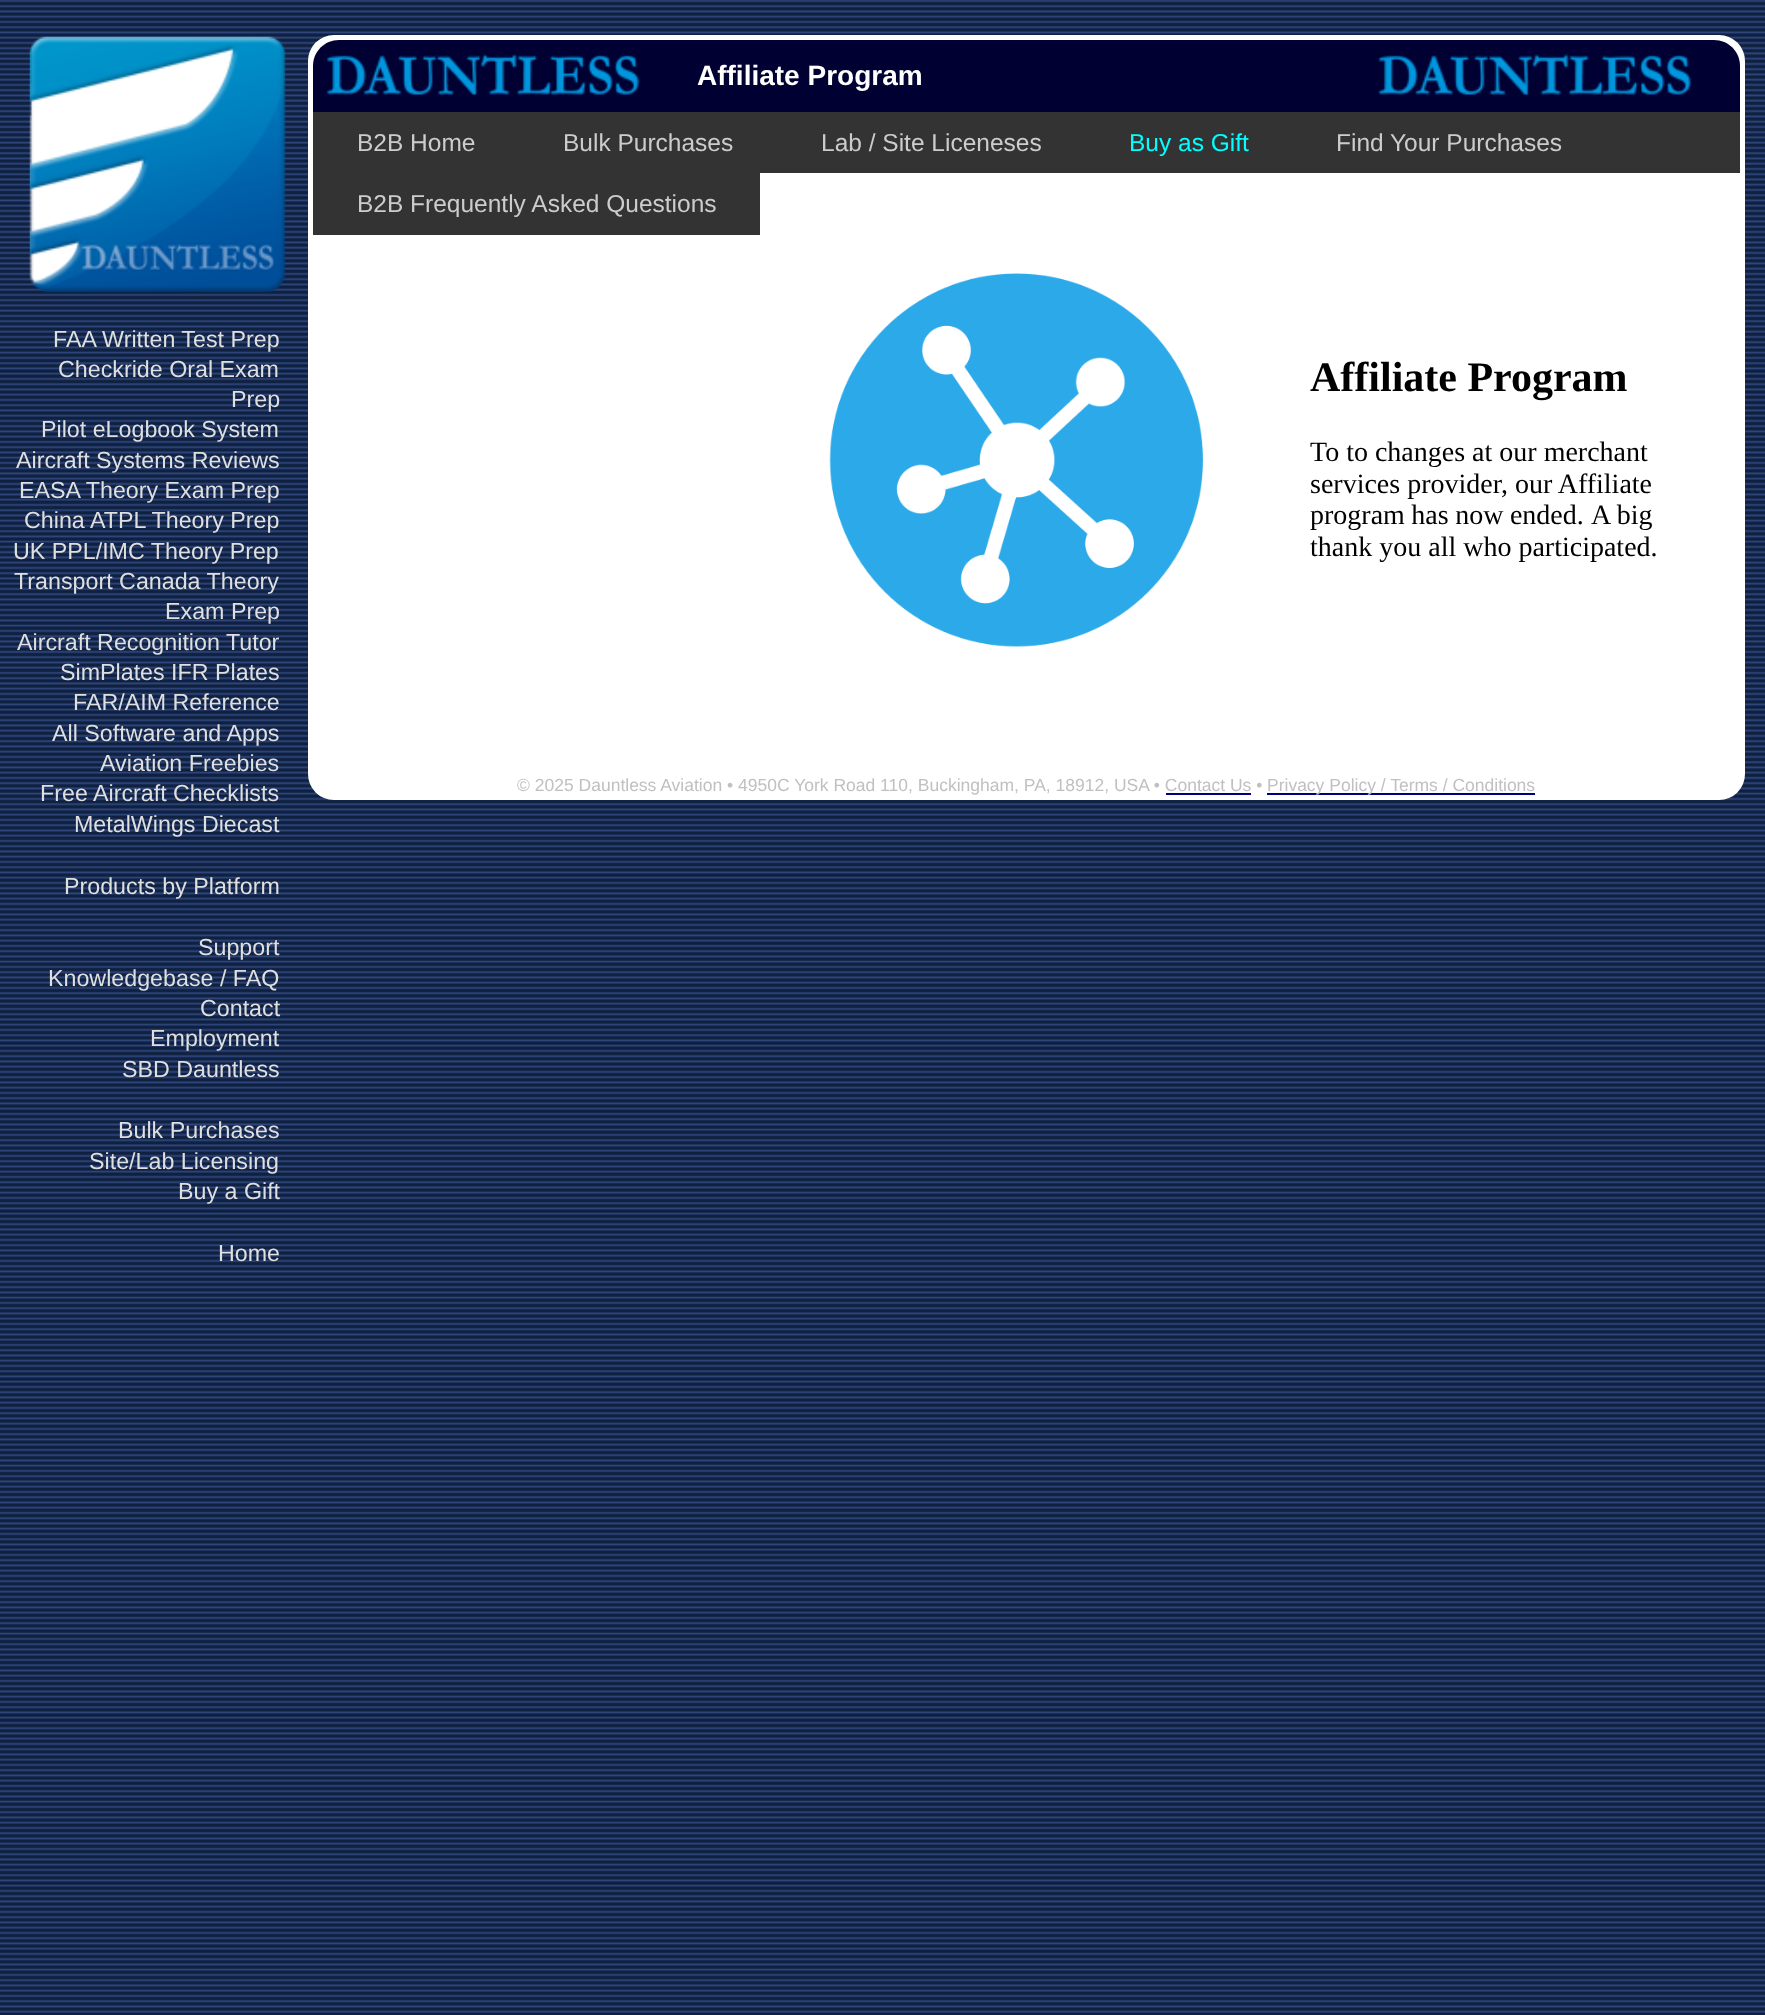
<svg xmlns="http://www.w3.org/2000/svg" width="1765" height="2015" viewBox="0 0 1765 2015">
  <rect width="100%" height="100%" fill="rgb(255,255,255)"/>
  <image x="0" y="0" width="1765" height="2015" href="pic1.png"/>
  <image x="29" y="36" width="257" height="257" href="pic2.png"/>
  <g font-family="Liberation Sans" font-size="23.25" fill="rgb(223,223,223)">
    <text x="53" y="347">FAA Written Test Prep</text>
    <text x="58" y="377">Checkride Oral Exam</text>
    <text x="231" y="407">Prep</text>
    <text x="41" y="437">Pilot eLogbook System</text>
    <text x="16" y="468">Aircraft Systems Reviews</text>
    <text x="19" y="498">EASA Theory Exam Prep</text>
    <text x="24" y="528">China ATPL Theory Prep</text>
    <text x="13" y="559">UK PPL/IMC Theory Prep</text>
    <text x="14" y="589">Transport Canada Theory</text>
    <text x="165" y="619">Exam Prep</text>
    <text x="17" y="650">Aircraft Recognition Tutor</text>
    <text x="60" y="680">SimPlates IFR Plates</text>
    <text x="73" y="710">FAR/AIM Reference</text>
    <text x="52" y="741">All Software and Apps</text>
    <text x="100" y="771">Aviation Freebies</text>
    <text x="40" y="801">Free Aircraft Checklists</text>
    <text x="74" y="832">MetalWings Diecast</text>
    <text x="64" y="894">Products by Platform</text>
    <text x="198" y="955">Support</text>
    <text x="48" y="986">Knowledgebase / FAQ</text>
    <text x="200" y="1016">Contact</text>
    <text x="150" y="1046">Employment</text>
    <text x="122" y="1077">SBD Dauntless</text>
    <text x="118" y="1138">Bulk Purchases</text>
    <text x="89" y="1169">Site/Lab Licensing</text>
    <text x="178" y="1199">Buy a Gift</text>
    <text x="218" y="1261">Home</text>
  </g>
  <rect x="308" y="35" width="1437" height="765" rx="26" fill="rgb(255,255,255)"/>
  <path d="M339 40H1714C1728.5 40 1740 51.5 1740 66V112H313V66C313 51.5 324.5 40 339 40Z" fill="rgb(0,0,51)"/>
  <image x="326" y="54" width="314" height="41" href="pic3.png"/>
  <text x="697" y="85" font-family="Liberation Sans" font-size="28" font-weight="bold" fill="rgb(255,255,255)">Affiliate Program</text>
  <image x="1378" y="54" width="313" height="41" href="pic4.png"/>
  <rect x="313" y="112" width="1427" height="61" fill="rgb(51,51,51)"/>
  <g font-family="Liberation Sans" font-size="24.5" fill="rgb(204,204,204)">
    <text x="357" y="151">B2B Home</text>
    <text x="563" y="151">Bulk Purchases</text>
    <text x="821" y="151">Lab / Site Liceneses</text>
  </g>
  <text x="1129" y="151" font-family="Liberation Sans" font-size="24.5" fill="rgb(0,255,255)">Buy as Gift</text>
  <text x="1336" y="151" font-family="Liberation Sans" font-size="24.5" fill="rgb(204,204,204)">Find Your Purchases</text>
  <rect x="313" y="173" width="447" height="62" fill="rgb(51,51,51)"/>
  <text x="357" y="212" font-family="Liberation Sans" font-size="24.5" fill="rgb(204,204,204)">B2B Frequently Asked Questions</text>
  <image x="829" y="273" width="374" height="374" href="pic5.png"/>
  <text x="1310" y="391" font-family="Liberation Serif" font-size="42" font-weight="bold" fill="rgb(0,0,0)">Affiliate Program</text>
  <g font-family="Liberation Serif" font-size="28" fill="rgb(0,0,0)">
    <text>
      <tspan x="1310" y="461">To to changes at our merchant</tspan>
      <tspan x="1310" y="493">services provider, our Affiliate</tspan>
      <tspan x="1310" y="524" word-spacing="-0.5">program has now ended.</tspan>
    </text>
    <text x="1591" y="524">A big</text>
    <text x="1310" y="556">thank you all who participated.</text>
  </g>
  <text x="517" y="791" font-family="Liberation Sans" font-size="17.5" fill="rgb(192,192,192)">© 2025 Dauntless Aviation • 4950C York Road 110, Buckingham, PA, 18912, USA • Contact Us •</text>
  <rect x="1166" y="793" width="85" height="2" fill="rgb(0,0,128)"/>
  <rect x="1267" y="793" width="268" height="2" fill="rgb(0,0,128)"/>
  <text x="1267" y="791" font-family="Liberation Sans" font-size="17.5" fill="rgb(192,192,192)">Privacy Policy / Terms / Conditions</text>
</svg>
